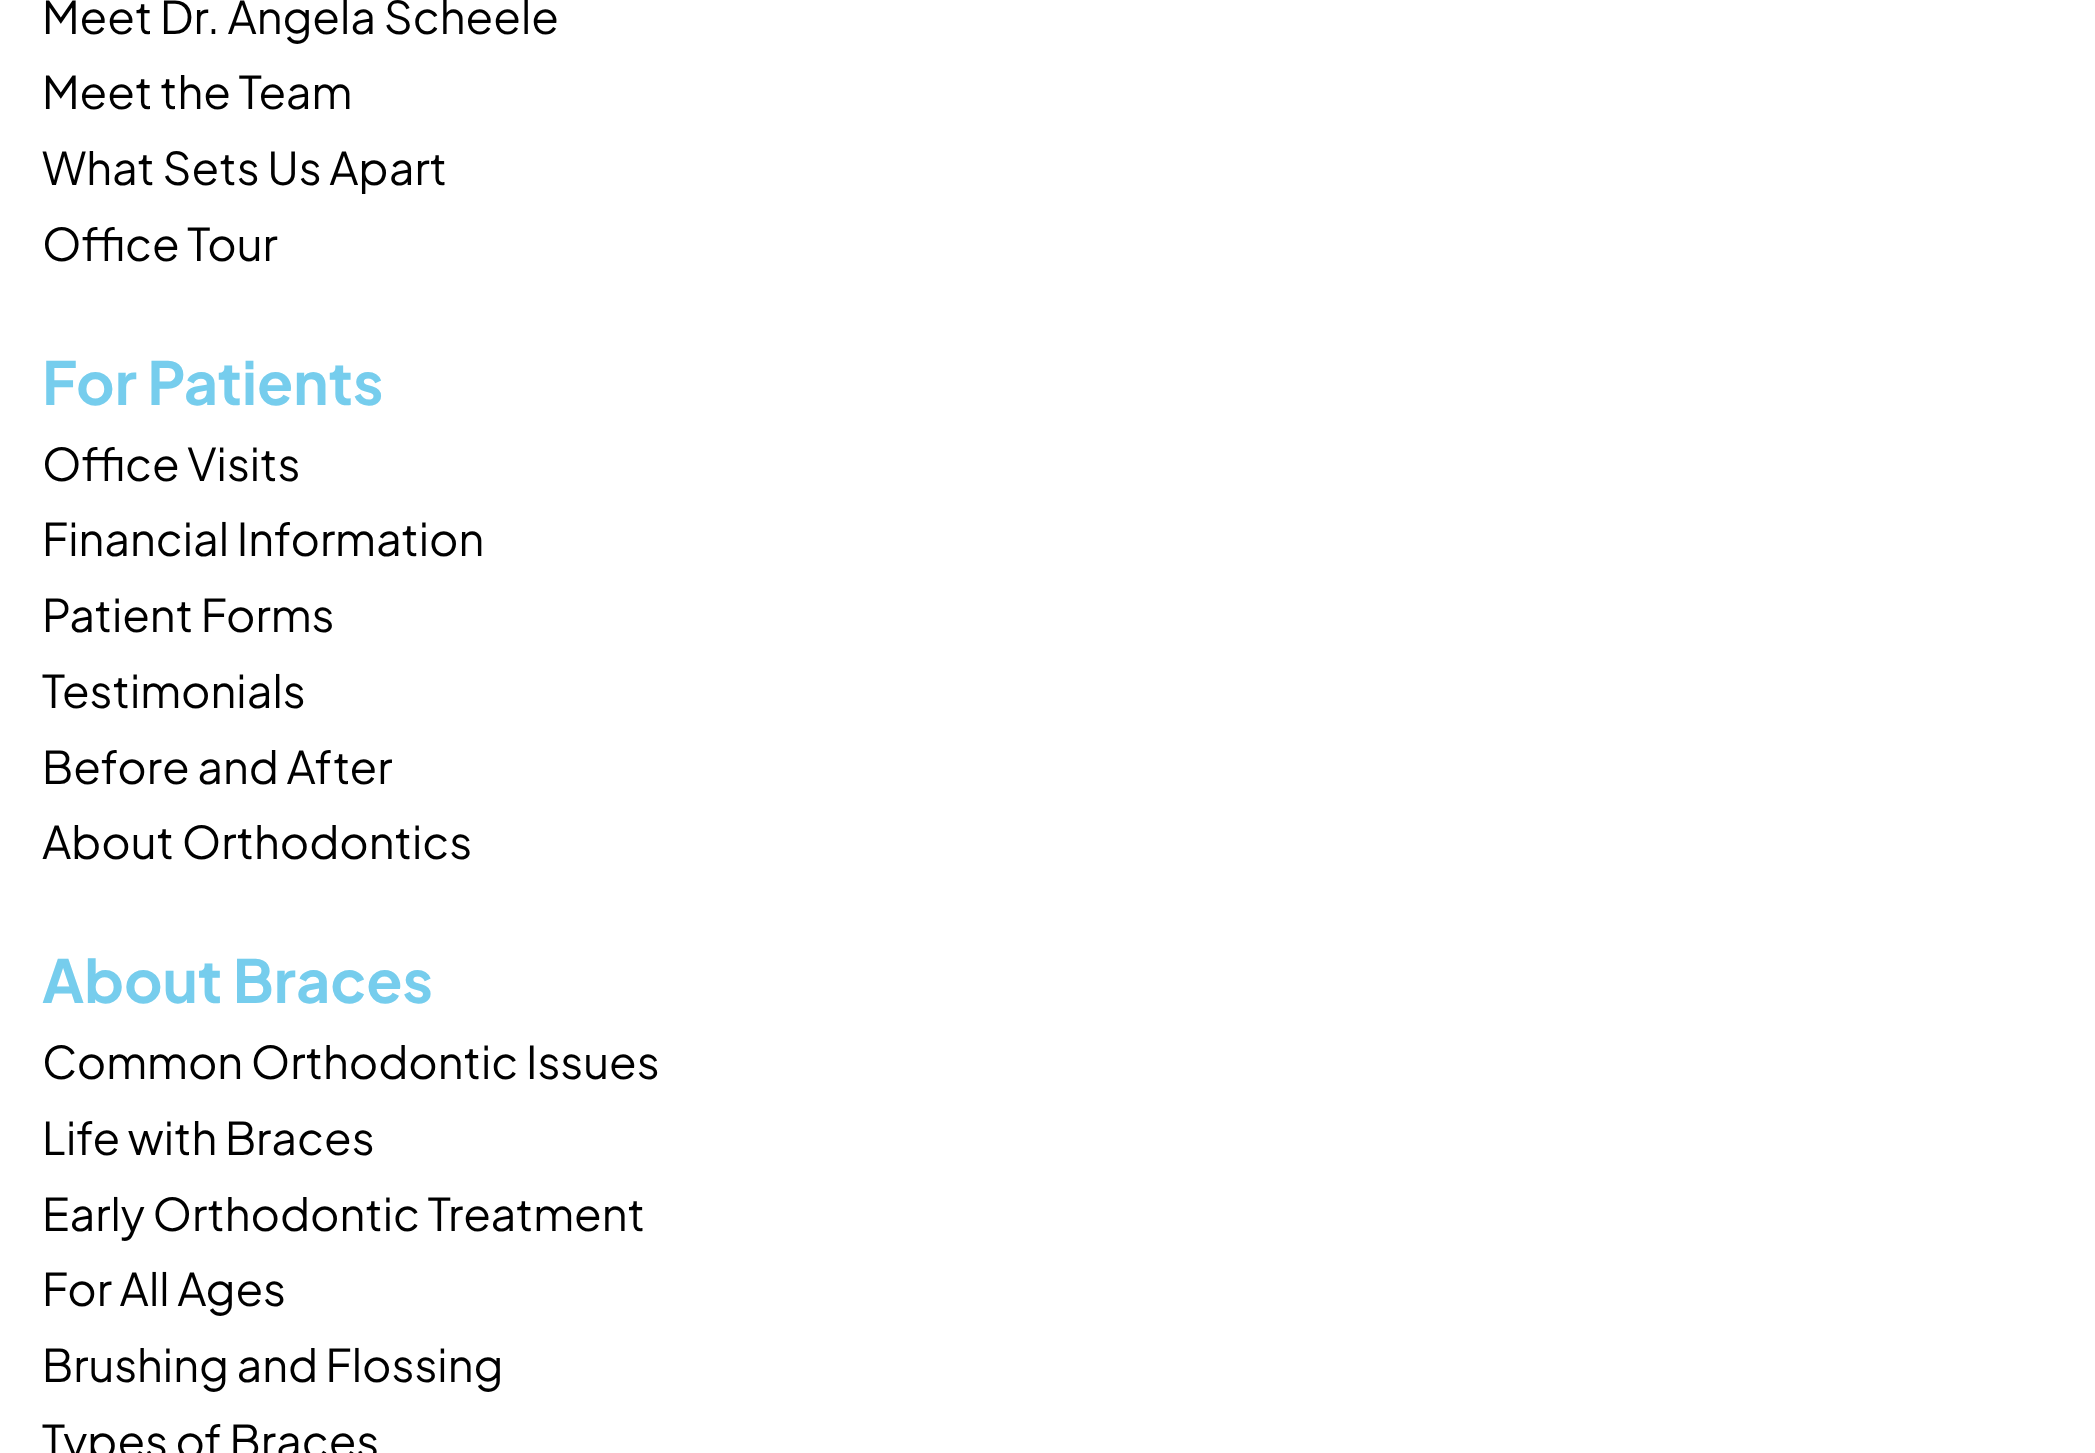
<svg xmlns="http://www.w3.org/2000/svg" width="2095" height="1453" viewBox="0 0 2095 1453">
  <rect width="100%" height="100%" fill="rgb(255,255,255)"/>
  <g font-family="Plus Jakarta Sans" font-size="45" fill="rgb(0,0,0)">
    <text>
      <tspan x="42" y="34">Meet Dr. Angela Scheele</tspan>
      <tspan x="42" y="109">Meet the Team</tspan>
      <tspan x="42" y="185">What Sets Us Apart</tspan>
      <tspan x="42" y="261">Office Tour</tspan>
    </text>
  </g>
  <text x="42" y="405" font-family="Plus Jakarta Sans" font-size="59.25" font-weight="bold" fill="rgb(118,205,237)">For Patients</text>
  <g font-family="Plus Jakarta Sans" font-size="45" fill="rgb(0,0,0)">
    <text>
      <tspan x="42" y="481">Office Visits</tspan>
      <tspan x="42" y="556">Financial Information</tspan>
      <tspan x="42" y="632">Patient Forms</tspan>
      <tspan x="42" y="708">Testimonials</tspan>
      <tspan x="42" y="784">Before and After</tspan>
      <tspan x="42" y="859">About Orthodontics</tspan>
    </text>
  </g>
  <text x="42" y="1003" font-family="Plus Jakarta Sans" font-size="59.25" font-weight="bold" fill="rgb(118,205,237)">About Braces</text>
  <g font-family="Plus Jakarta Sans" font-size="45" fill="rgb(0,0,0)">
    <text>
      <tspan x="42" y="1079">Common Orthodontic Issues</tspan>
      <tspan x="42" y="1155">Life with Braces</tspan>
      <tspan x="42" y="1231">Early Orthodontic Treatment</tspan>
      <tspan x="42" y="1306">For All Ages</tspan>
      <tspan x="42" y="1382">Brushing and Flossing</tspan>
      <tspan x="42" y="1458">Types of Braces</tspan>
    </text>
  </g>
</svg>
